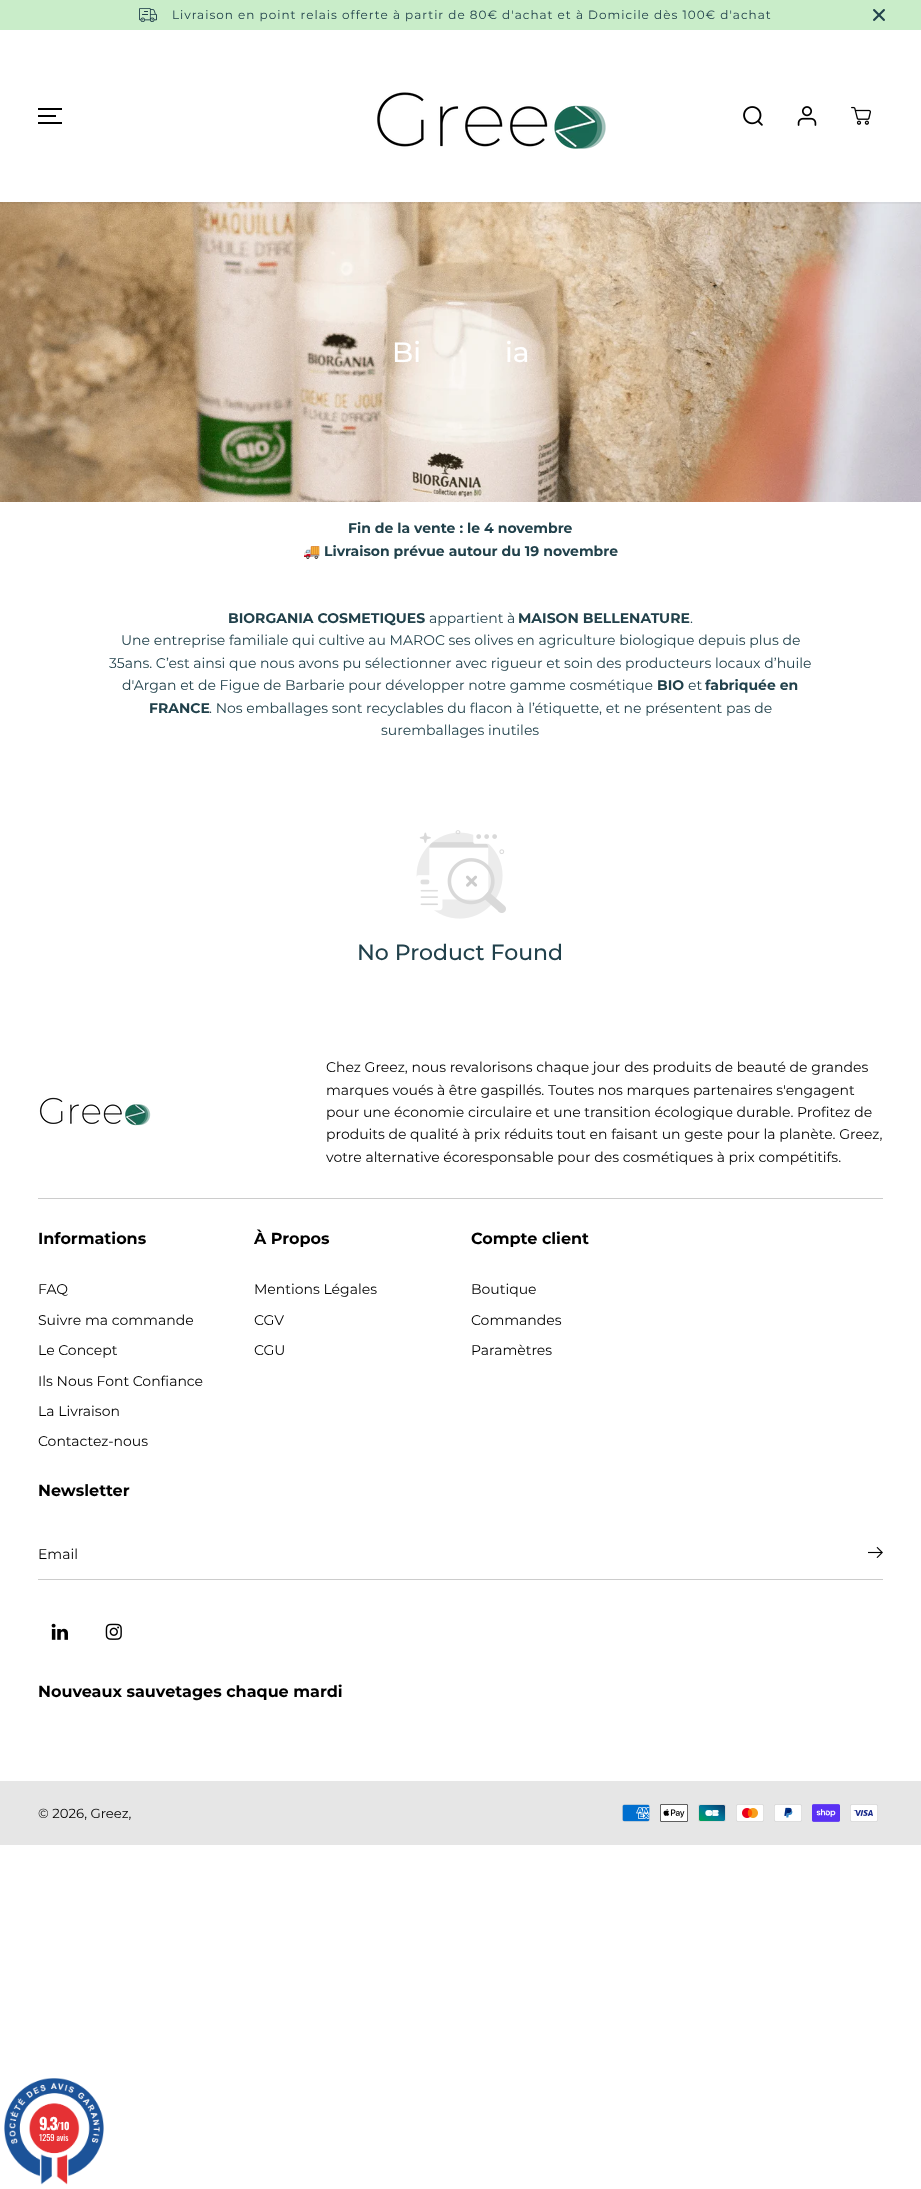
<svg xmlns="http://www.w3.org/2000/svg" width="921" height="2189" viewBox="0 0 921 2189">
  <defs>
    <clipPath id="clip1"><rect x="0" y="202" width="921" height="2"/></clipPath>
  </defs>
  <rect width="100%" height="100%" fill="rgb(255,255,255)"/>
  <rect x="0" y="0" width="921" height="30" fill="rgb(201,237,201)"/>
  <image x="139" y="8" width="18" height="14" href="pic1.png"/>
  <text x="172" y="19" font-family="Montserrat" font-size="12" letter-spacing="1" fill="rgb(33,65,75)">Livraison en point relais offerte à partir de 80€ d'achat et à Domicile dès 100€ d'achat</text>
  <image x="873" y="9" width="12" height="12" href="pic2.png"/>
  <image x="0" y="202" width="921" height="300" href="pic7.png"/>
  <g clip-path="url(#clip1)">
    <rect x="0" y="32" width="921" height="172" fill="rgba(0,0,0,0.05)" filter="blur(1px)"/>
  </g>
  <rect x="38" y="115" width="18" height="2" fill="rgb(0,0,0)"/>
  <rect x="38" y="108" width="24" height="2" fill="rgb(0,0,0)"/>
  <rect x="38" y="122" width="24" height="2" fill="rgb(0,0,0)"/>
  <image x="377" y="92" width="229" height="57" href="pic3.png"/>
  <image x="743" y="106" width="20" height="20" href="pic4.png"/>
  <image x="797" y="106" width="20" height="20" href="pic5.png"/>
  <image x="851" y="106" width="20" height="19" href="pic6.png"/>
  <g font-family="Montserrat" font-size="28" font-weight="500" fill="rgb(255,255,255)">
    <text x="392" y="362">Bi</text>
    <text x="505" y="362">ia</text>
  </g>
  <text x="348" y="533" font-family="Montserrat" font-size="14" font-weight="bold" fill="rgb(33,65,75)">Fin de la vente : le 4 novembre</text>
  <text x="303" y="556" font-family="Noto Color Emoji" font-size="14" font-weight="bold" fill="rgb(33,65,75)">🚚</text>
  <g font-family="Montserrat" font-size="14" font-weight="bold" fill="rgb(33,65,75)">
    <text x="324" y="556">Livraison prévue autour du 19 novembre</text>
    <text x="228" y="623">BIORGANIA COSMETIQUES</text>
  </g>
  <text x="429" y="623" font-family="Montserrat" font-size="14" fill="rgb(33,65,75)">appartient à</text>
  <text x="518" y="623" font-family="Montserrat" font-size="14" font-weight="bold" fill="rgb(33,65,75)">MAISON BELLENATURE</text>
  <g font-family="Montserrat" font-size="14" fill="rgb(33,65,75)">
    <text x="690" y="623">.</text>
    <text x="121" y="645">Une entreprise familiale qui cultive au MAROC ses olives en agriculture biologique depuis plus de</text>
    <text x="109" y="668">35ans. C’est ainsi que nous avons pu sélectionner avec rigueur et soin des producteurs locaux d’huile</text>
    <text x="122" y="690">d'Argan et de Figue de Barbarie pour développer notre gamme cosmétique</text>
  </g>
  <text x="657" y="690" font-family="Montserrat" font-size="14" font-weight="bold" fill="rgb(33,65,75)">BIO</text>
  <text x="688" y="690" font-family="Montserrat" font-size="14" fill="rgb(33,65,75)">et</text>
  <g font-family="Montserrat" font-size="14" font-weight="bold" fill="rgb(33,65,75)">
    <text x="705" y="690">fabriquée en</text>
    <text x="149" y="713">FRANCE</text>
  </g>
  <g font-family="Montserrat" font-size="14" fill="rgb(33,65,75)">
    <text x="209" y="713">. Nos emballages sont recyclables du flacon à l’étiquette, et ne présentent pas de</text>
    <text x="381" y="735">suremballages inutiles</text>
  </g>
  <image x="416" y="830" width="90" height="89" href="pic8.png"/>
  <text x="357" y="960" font-family="Montserrat" font-size="22" font-weight="500" fill="rgb(33,65,75)">No Product Found</text>
  <rect x="38" y="1198" width="845" height="1" fill="rgb(204,204,204)"/>
  <image x="39" y="1097" width="112" height="29" href="pic9.png"/>
  <g font-family="Montserrat" font-size="14" fill="rgb(0,0,0)">
    <text>
      <tspan x="326" y="1072">Chez Greez, nous revalorisons chaque jour des produits de beauté de grandes</tspan>
      <tspan x="326" y="1095">marques voués à être gaspillés. Toutes nos marques partenaires s'engagent</tspan>
      <tspan x="326" y="1117">pour une économie circulaire et une transition écologique durable. Profitez de</tspan>
      <tspan x="326" y="1139">produits de qualité à prix réduits tout en faisant un geste pour la planète. Greez,</tspan>
      <tspan x="326" y="1162">votre alternative écoresponsable pour des cosmétiques à prix compétitifs.</tspan>
    </text>
  </g>
  <text x="38" y="1244" font-family="Montserrat" font-size="16" font-weight="bold" fill="rgb(0,0,0)">Informations</text>
  <g font-family="Montserrat" font-size="14" fill="rgb(0,0,0)">
    <text x="38" y="1294">FAQ</text>
    <text x="38" y="1325">Suivre ma commande</text>
    <text x="38" y="1355">Le Concept</text>
    <text x="38" y="1386">Ils Nous Font Confiance</text>
    <text x="38" y="1416">La Livraison</text>
    <text x="38" y="1446">Contactez-nous</text>
  </g>
  <text x="254" y="1244" font-family="Montserrat" font-size="16" font-weight="bold" fill="rgb(0,0,0)">À Propos</text>
  <g font-family="Montserrat" font-size="14" fill="rgb(0,0,0)">
    <text x="254" y="1294">Mentions Légales</text>
    <text x="254" y="1325">CGV</text>
    <text x="254" y="1355">CGU</text>
  </g>
  <text x="471" y="1244" font-family="Montserrat" font-size="16" font-weight="bold" fill="rgb(0,0,0)">Compte client</text>
  <g font-family="Montserrat" font-size="14" fill="rgb(0,0,0)">
    <text x="471" y="1294">Boutique</text>
    <text x="471" y="1325">Commandes</text>
    <text x="471" y="1355">Paramètres</text>
  </g>
  <text x="38" y="1496" font-family="Montserrat" font-size="16" font-weight="bold" fill="rgb(0,0,0)">Newsletter</text>
  <rect x="38" y="1579" width="845" height="1" fill="rgb(204,204,204)"/>
  <text x="38" y="1559" font-family="Montserrat" font-size="14" fill="rgb(0,0,0)">Email</text>
  <image x="868" y="1546" width="15" height="12" href="pic10.png"/>
  <image x="51" y="1623" width="17" height="17" href="pic11.png"/>
  <image x="105" y="1623" width="17" height="17" href="pic12.png"/>
  <text x="38" y="1697" font-family="Montserrat" font-size="16" font-weight="bold" fill="rgb(0,0,0)">Nouveaux sauvetages chaque mardi</text>
  <rect x="0" y="1781" width="921" height="64" fill="rgb(230,230,230)"/>
  <text x="38" y="1818" font-family="Montserrat" font-size="13.25" fill="rgb(0,0,0)">© 2026, Greez,</text>
  <image x="622" y="1804" width="28" height="18" href="pic13.png"/>
  <image x="660" y="1804" width="28" height="18" href="pic14.png"/>
  <image x="698" y="1804" width="28" height="18" href="pic15.png"/>
  <image x="736" y="1804" width="28" height="18" href="pic16.png"/>
  <image x="774" y="1804" width="28" height="18" href="pic17.png"/>
  <image x="812" y="1804" width="28" height="18" href="pic18.png"/>
  <image x="850" y="1804" width="28" height="18" href="pic19.png"/>
  <image x="4" y="2078" width="100" height="107" href="pic20.png"/>
  <text x="39" y="2130" font-family="Oswald" font-size="16" font-weight="bold" letter-spacing="-1" fill="rgb(255,255,255)">9.3</text>
  <text x="56" y="2130" font-family="Oswald" font-size="10" font-weight="bold" fill="rgb(255,255,255)">/10</text>
  <text x="39" y="2141" font-family="Oswald" font-size="8.5" fill="rgb(255,255,255)">1259 avis</text>
</svg>
